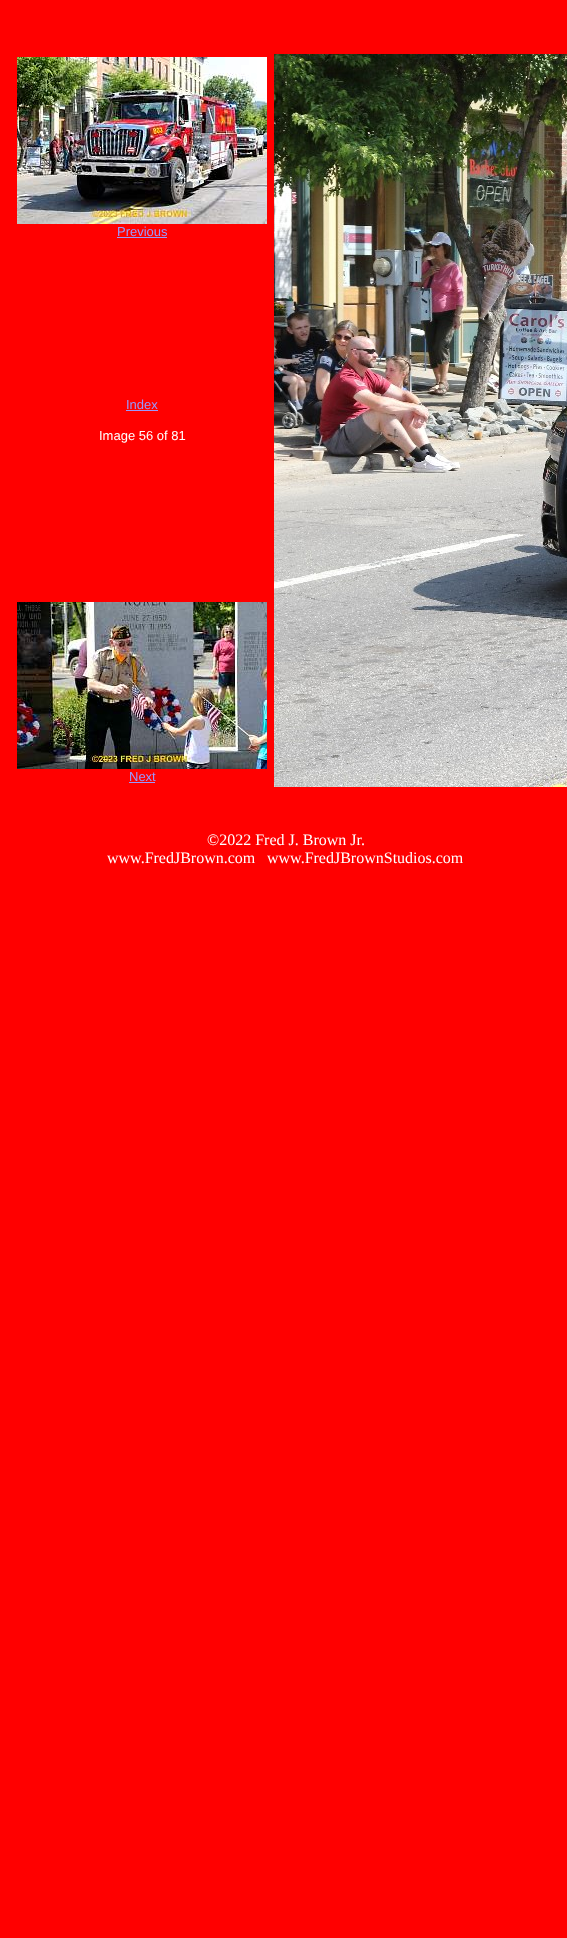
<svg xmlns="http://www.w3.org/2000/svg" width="567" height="1938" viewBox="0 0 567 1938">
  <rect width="100%" height="100%" fill="rgb(255,0,0)"/>
  <image x="17" y="57" width="250" height="167" href="pic1.png"/>
  <text x="117" y="236" font-family="Liberation Sans" font-size="13" fill="rgb(153,153,255)">Previous</text>
  <rect x="117" y="237" width="50" height="1" fill="rgb(153,153,255)"/>
  <text x="126" y="409" font-family="Liberation Sans" font-size="13" fill="rgb(153,153,255)">Index</text>
  <rect x="126" y="410" width="32" height="1" fill="rgb(153,153,255)"/>
  <text x="99" y="440" font-family="Liberation Sans" font-size="13" fill="rgb(255,255,255)">Image 56 of 81</text>
  <image x="17" y="602" width="250" height="167" href="pic2.png"/>
  <text x="129" y="781" font-family="Liberation Sans" font-size="13" fill="rgb(153,153,255)">Next</text>
  <rect x="129" y="782" width="26" height="1" fill="rgb(153,153,255)"/>
  <image x="274" y="54" width="293" height="733" href="pic3.png"/>
  <g font-family="Liberation Serif" font-size="16" fill="rgb(255,255,255)">
    <text x="207" y="845">©2022 Fred J. Brown Jr.</text>
    <text x="107" y="863">www.FredJBrown.com</text>
    <text x="267" y="863">www.FredJBrownStudios.com</text>
  </g>
</svg>
